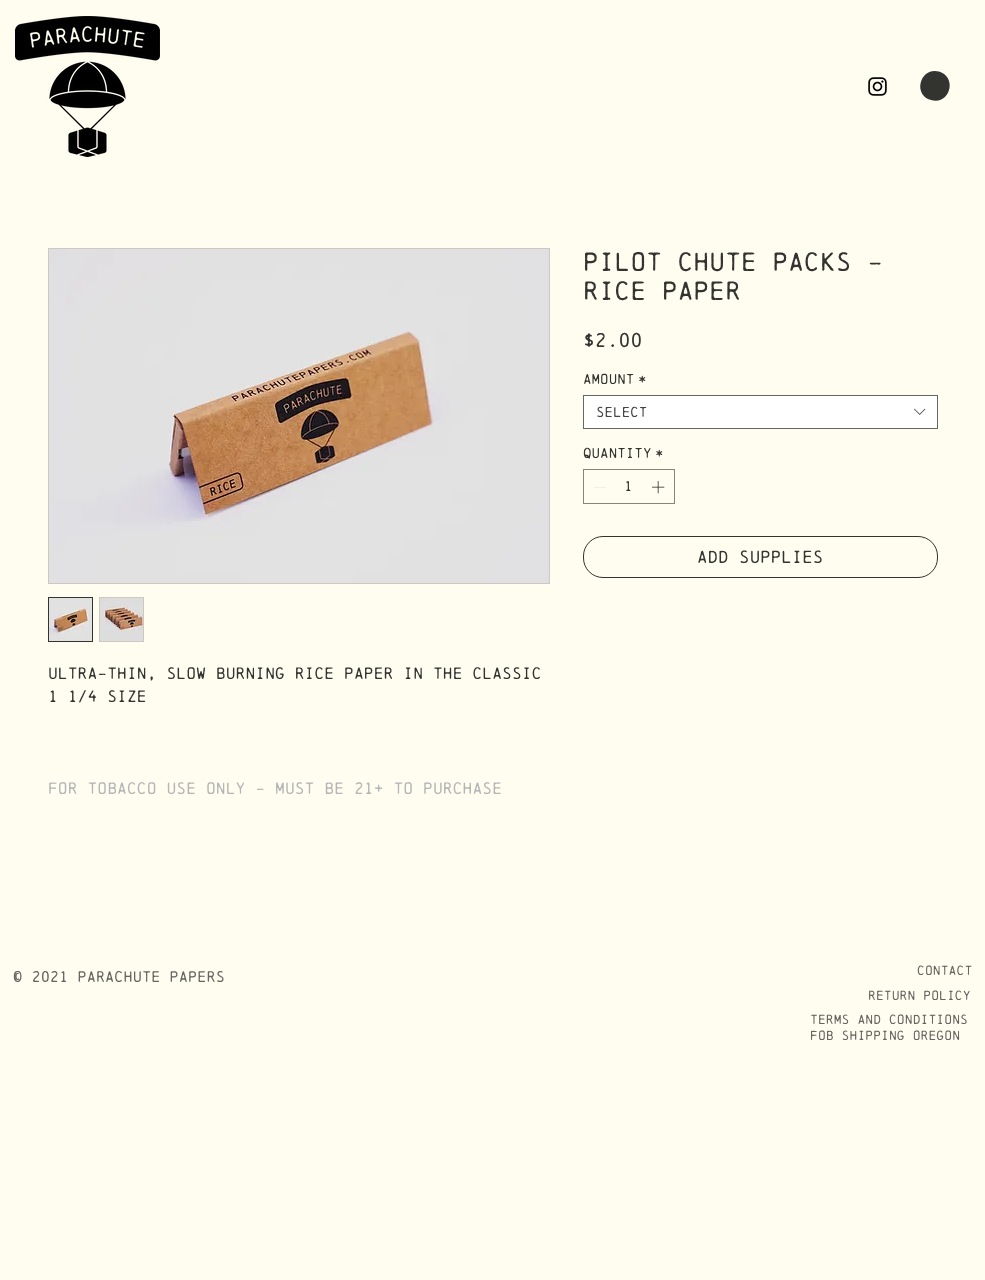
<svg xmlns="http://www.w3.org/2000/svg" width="985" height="1280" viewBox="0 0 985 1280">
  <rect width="100%" height="100%" fill="rgb(255,253,240)"/>
  <image x="15" y="16" width="145" height="141" href="pic1.png"/>
  <image x="868" y="77" width="19" height="19" href="pic2.png"/>
  <path d="M939 71.5C958 77.5 949.5 105.5 931 100C912 94.5 920.5 66.5 939 71.5Z" fill="rgb(51,51,48)"/>
  <g font-family="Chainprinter" font-size="24" fill="rgb(51,51,48)">
    <text>
      <tspan x="583" y="271">Pilot Chute Packs -</tspan>
      <tspan x="583" y="300">Rice Paper</tspan>
    </text>
  </g>
  <text x="583" y="347" font-family="Chainprinter" font-size="18" fill="rgb(51,51,48)">$2.00</text>
  <g font-family="Chainprinter" font-size="13" fill="rgb(51,51,48)">
    <text x="583" y="384">Amount</text>
    <text x="638" y="384">*</text>
  </g>
  <rect x="583.5" y="395.5" width="354" height="33" fill="rgb(255,255,255)" stroke="rgb(102,102,102)"/>
  <text x="596" y="417" font-family="Chainprinter" font-size="13" fill="rgb(68,68,68)">Select</text>
  <image x="914" y="408" width="12" height="7" href="pic3.png"/>
  <g font-family="Chainprinter" font-size="13" fill="rgb(51,51,48)">
    <text x="583" y="458">Quantity</text>
    <text x="655" y="458">*</text>
  </g>
  <rect x="583.5" y="469.5" width="91" height="34" fill="none" stroke="rgb(133,132,125)"/>
  <path d="M606 487V487.5H594V487Z" fill="rgb(227,226,220)" fill-rule="evenodd"/>
  <text x="624" y="491" font-family="Chainprinter" font-size="13" fill="rgb(51,51,48)">1</text>
  <image x="652" y="481" width="13" height="13" href="pic4.png"/>
  <rect x="583.5" y="536.5" width="354" height="41" rx="19.5" fill="none" stroke="rgb(51,51,48)"/>
  <text x="697" y="563" font-family="Chainprinter" font-size="16" fill="rgb(51,51,48)">Add Supplies</text>
  <rect x="48.5" y="248.5" width="501" height="335" fill="none" stroke="rgb(204,202,192)"/>
  <image x="49" y="249" width="500" height="334" href="pic5.png"/>
  <rect x="48.5" y="597.5" width="44" height="44" fill="none" stroke="rgb(51,51,48)"/>
  <image x="49" y="598" width="43" height="43" href="pic6.png"/>
  <rect x="99" y="597" width="45" height="45" fill="rgb(204,202,192)"/>
  <image x="100" y="598" width="43" height="43" href="pic7.png"/>
  <g font-family="Chainprinter" font-size="15" fill="rgb(51,51,48)">
    <text>
      <tspan x="48" y="679">Ultra-thin, slow burning rice paper in the classic</tspan>
      <tspan x="48" y="702">1 1/4 size</tspan>
    </text>
  </g>
  <text x="48" y="794" font-family="Chainprinter" font-size="15" fill="rgb(181,181,181)">For tobacco use only - Must be 21+ to purchase</text>
  <text x="13" y="982" font-family="Chainprinter" font-size="14" fill="rgb(102,101,96)">© 2021 Parachute Papers</text>
  <g font-family="Chainprinter" font-size="12" fill="rgb(102,101,96)">
    <text x="917" y="975">Contact</text>
    <text x="868" y="1000">Return policy</text>
    <text>
      <tspan x="810" y="1024">Terms and Conditions</tspan>
      <tspan x="810" y="1040">FOB SHIPPING oREGON</tspan>
    </text>
  </g>
</svg>
